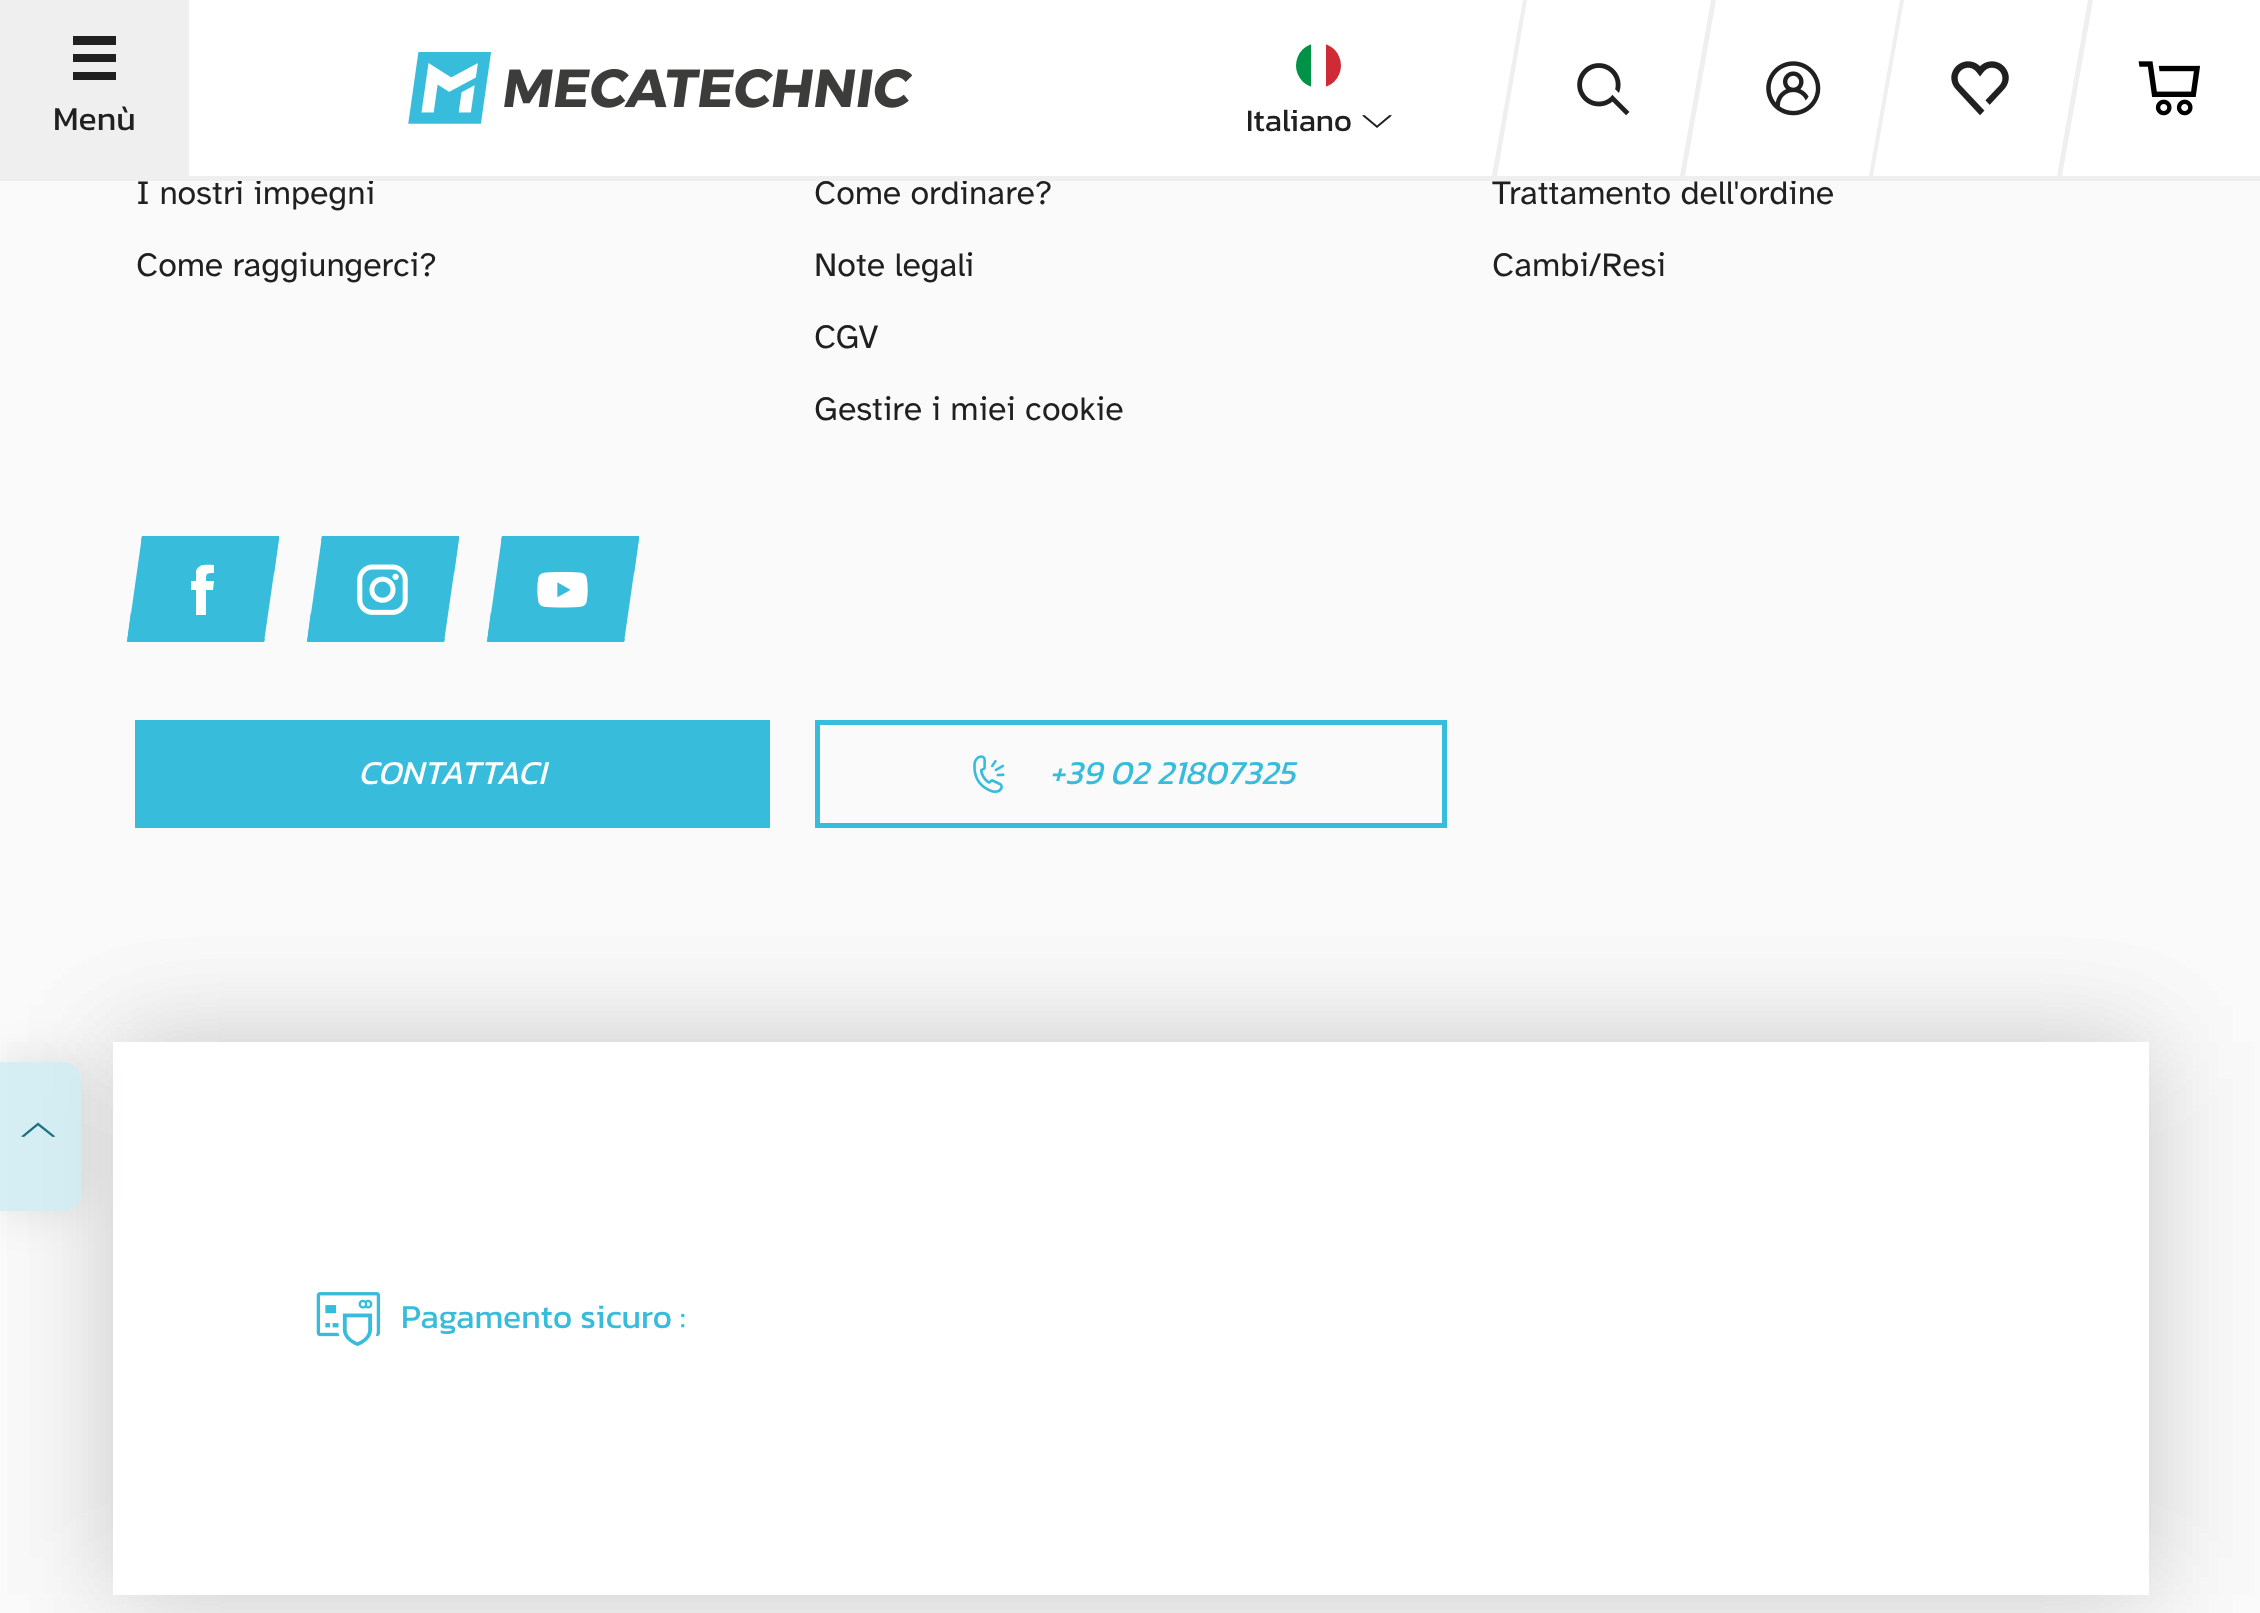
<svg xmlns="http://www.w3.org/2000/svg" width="2260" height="1613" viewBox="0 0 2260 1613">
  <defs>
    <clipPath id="clip1"><rect x="1296" y="43" width="45" height="45" rx="22.5"/></clipPath>
    <clipPath id="clip2"><path d="M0 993H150V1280H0ZM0 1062H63C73 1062 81 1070 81 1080V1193C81 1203 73 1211 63 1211H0Z" clip-rule="evenodd"/></clipPath>
  </defs>
  <rect width="100%" height="100%" fill="rgb(250,250,250)"/>
  <rect x="189" y="0" width="2071" height="176" fill="rgb(255,255,255)"/>
  <g font-family="Atkinson Hyperlegible" font-size="33.75" fill="rgb(32,32,32)">
    <text x="136" y="204">I nostri impegni</text>
    <text x="814" y="204">Come ordinare?</text>
    <text x="1492" y="204">Trattamento dell'ordine</text>
  </g>
  <rect x="0" y="176" width="2260" height="5" fill="rgb(239,239,239)"/>
  <rect x="0" y="0" width="189" height="176" fill="rgb(239,239,239)"/>
  <path d="M73 36H116V45H73ZM73 54H116V62H73ZM73 72H116V80H73Z" fill="rgb(32,32,32)"/>
  <text x="53" y="130" font-family="Kanit" font-size="33.75" fill="rgb(32,32,32)">Menù</text>
  <image x="408" y="52" width="504" height="72" href="pic1.png"/>
  <g clip-path="url(#clip1)">
    <rect x="1296" y="44" width="15" height="43" fill="rgb(0,146,70)"/>
    <rect x="1326" y="44" width="15" height="43" fill="rgb(206,43,55)"/>
  </g>
  <text x="1246" y="131" font-family="Kanit" font-size="31.5" fill="rgb(32,32,32)">Italiano</text>
  <path d="M1377 128L1362 115.5L1364.5 115L1377 125.5L1389.5 115L1392 115.5Z" fill="rgb(32,32,32)"/>
  <path d="M1523 0H1527L1497 176H1492Z" fill="rgb(239,239,239)"/>
  <image x="1577" y="63" width="53" height="53" href="pic2.png"/>
  <path d="M1711 0H1716L1685 176H1680Z" fill="rgb(239,239,239)"/>
  <image x="1766" y="61" width="55" height="55" href="pic3.png"/>
  <path d="M1900 0H1904L1873 176H1869Z" fill="rgb(239,239,239)"/>
  <image x="1951" y="61" width="58" height="55" href="pic4.png"/>
  <path d="M2088 0H2093L2062 176H2057Z" fill="rgb(239,239,239)"/>
  <image x="2138" y="61" width="63" height="55" href="pic5.png"/>
  <rect x="113" y="1042" width="2036" height="553" fill="rgba(0,0,0,0.1)" filter="blur(56px)"/>
  <rect x="113" y="1042" width="2036" height="553" fill="rgba(0,0,0,0.1)" filter="blur(56px)"/>
  <rect x="113" y="1042" width="2036" height="553" fill="rgb(255,255,255)"/>
  <g clip-path="url(#clip2)">
    <rect x="0" y="1062" width="81" height="149" rx="18" fill="rgba(0,0,0,0.1)" filter="blur(22.5px)"/>
  </g>
  <path d="M0 1062H63C73 1062 81 1070 81 1080V1193C81 1203 73 1211 63 1211H0Z" fill="rgba(201,235,243,0.75)"/>
  <path d="M38 1122.5L55.5 1136.5L52.5 1137L38 1125.5L24 1137L21 1136.5Z" fill="rgb(30,112,132)"/>
  <g font-family="Atkinson Hyperlegible" font-size="33.75" fill="rgb(32,32,32)">
    <text x="136" y="276">Come raggiungerci?</text>
    <text x="814" y="276">Note legali</text>
    <text x="814" y="348">CGV</text>
    <text x="814" y="420">Gestire i miei cookie</text>
    <text x="1492" y="276">Cambi/Resi</text>
  </g>
  <path d="M279 538L264 642H127L142 536H279Z" fill="rgb(55,188,219)"/>
  <path d="M279 538V536H142L141 541H274V574ZM265 639H131V611L127 642H264Z" fill="rgb(55,188,219)" fill-rule="evenodd"/>
  <path d="M196 574V581H191V590H196V615H206V590H213L214 581H206C206 573 206 573 214 573V565C207 565 199 563 196 571Z" fill="rgb(255,255,255)"/>
  <path d="M459 538L444 642H307L322 536H459Z" fill="rgb(55,188,219)"/>
  <path d="M459 538V536H322L321 541H454V574ZM445 639H311V611L307 642H444Z" fill="rgb(55,188,219)" fill-rule="evenodd"/>
  <image x="357" y="564" width="51" height="51" href="pic6.png"/>
  <path d="M639 538L624 642H487L502 536H639Z" fill="rgb(55,188,219)"/>
  <path d="M639 538V536H502L501 541H634V574ZM625 639H491V611L487 642H624Z" fill="rgb(55,188,219)" fill-rule="evenodd"/>
  <image x="537" y="571" width="51" height="37" href="pic7.png"/>
  <rect x="135" y="720" width="635" height="108" fill="rgb(55,188,219)"/>
  <text x="358" y="784" font-family="Kanit" font-size="33.75" font-style="italic" fill="rgb(255,255,255)">CONTATTACI</text>
  <rect x="817.5" y="722.5" width="627" height="103" fill="none" stroke="rgb(55,188,219)" stroke-width="5"/>
  <image x="973" y="755" width="32" height="38" href="pic8.png"/>
  <text x="1049" y="784" font-family="Kanit" font-size="33.75" font-style="italic" fill="rgb(55,188,219)">+39 02 21807325</text>
  <image x="316" y="1292" width="65" height="54" href="pic9.png"/>
  <text x="401" y="1328" font-family="Kanit" font-size="33.75" fill="rgb(55,188,219)">Pagamento sicuro :</text>
</svg>
